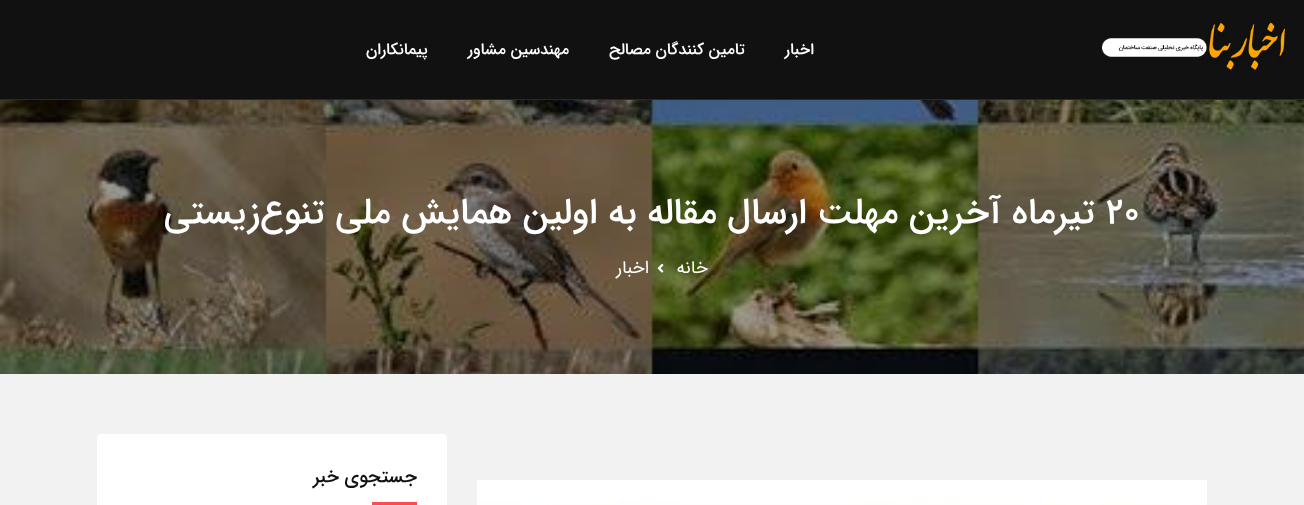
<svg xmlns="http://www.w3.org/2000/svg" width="1304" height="505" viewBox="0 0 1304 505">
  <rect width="100%" height="100%" fill="rgb(242,242,242)"/>
  <rect x="0" y="0" width="1304" height="99" fill="rgb(17,17,17)"/>
  <rect x="0" y="99" width="1304" height="1" fill="rgb(41,41,41)"/>
  <image x="1102" y="22" width="183" height="48" href="pic1.png"/>
  <g font-family="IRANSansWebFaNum" font-size="16" font-weight="500" direction="rtl" fill="rgb(255,255,255)">
    <text x="814" y="54">اخبار</text>
    <text x="745" y="54">تامین کنندگان مصالح</text>
    <text x="569" y="54">مهندسین مشاور</text>
    <text x="428" y="54">پیمانکاران</text>
  </g>
  <image x="0" y="100" width="1304" height="274" href="pic2.png"/>
  <text x="1106" y="223" font-family="IRANSansWebFaNum" font-size="36" font-weight="500" fill="rgb(255,255,255)">20</text>
  <text x="1095" y="223" font-family="IRANSansWebFaNum" font-size="36" font-weight="500" direction="rtl" fill="rgb(255,255,255)">تيرماه آخرين مهلت ارسال مقاله به اولين همايش ملي تنوع‌زيستي</text>
  <text x="708" y="273" font-family="IRANSansWebFaNum" font-size="18" direction="rtl" fill="rgb(255,255,255)">خانه</text>
  <image x="657" y="263" width="7" height="10" href="pic3.png"/>
  <text x="649" y="273" font-family="IRANSansWebFaNum" font-size="18" direction="rtl" fill="rgb(255,255,255)">اخبار</text>
  <image x="477" y="480" width="730" height="25" href="pic4.png"/>
  <rect x="97" y="434" width="350" height="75" rx="4" fill="rgb(255,255,255)"/>
  <g font-family="IRANSansWebFaNum" font-size="19" font-weight="500" direction="rtl" fill="rgb(17,17,17)">
    <text x="417" y="482">جستجوی</text>
    <text x="339" y="482">خبر</text>
  </g>
  <rect x="372" y="502" width="45" height="3" fill="rgb(255,74,82)"/>
</svg>
